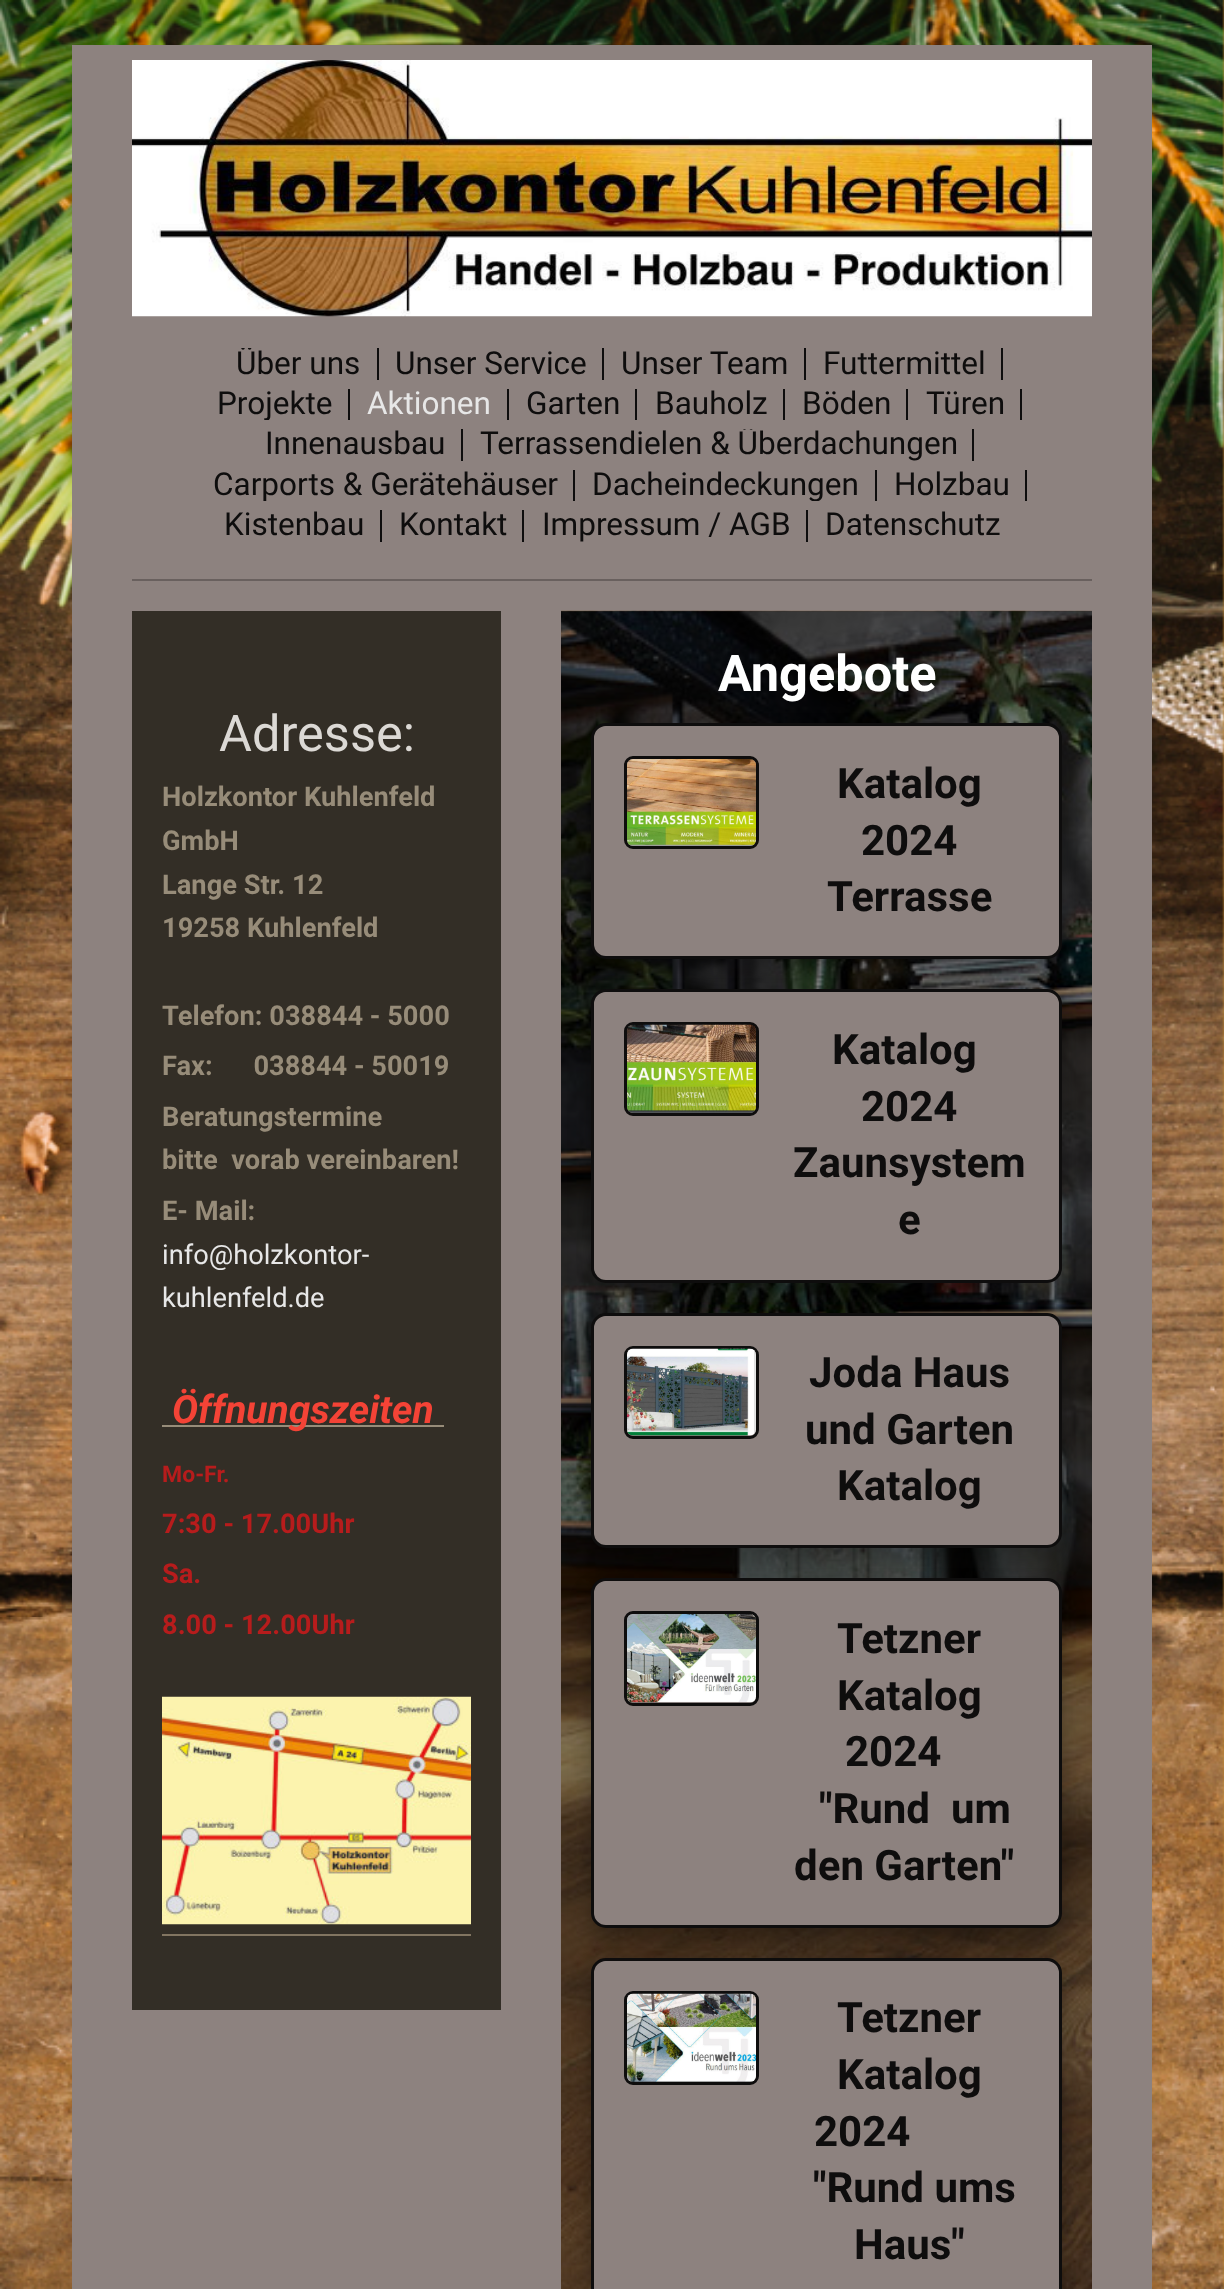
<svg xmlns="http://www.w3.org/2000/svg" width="1224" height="2289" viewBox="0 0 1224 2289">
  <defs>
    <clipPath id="clip1"><rect x="222" y="348" width="155" height="32"/></clipPath>
    <clipPath id="clip2"><rect x="203" y="389" width="145" height="31"/></clipPath>
    <clipPath id="clip3"><rect x="465" y="429" width="507" height="32"/></clipPath>
    <clipPath id="clip4"><rect x="198" y="470" width="375" height="31"/></clipPath>
    <clipPath id="clip5"><rect x="578" y="470" width="297" height="31"/></clipPath>
  </defs>
  <rect width="100%" height="100%" fill="rgb(191,136,45)"/>
  <image x="0" y="0" width="1224" height="2289" href="pic1.png"/>
  <rect x="72" y="45" width="1080" height="2244" fill="rgb(141,130,127)"/>
  <image x="132" y="60" width="960" height="257" href="pic2.png"/>
  <rect x="132" y="579" width="960" height="2" fill="rgb(105,96,94)"/>
  <rect x="377" y="348" width="2" height="32" fill="rgb(14,13,13)"/>
  <g clip-path="url(#clip1)">
    <text x="236" y="374" font-family="Roboto" font-size="31.5" fill="rgb(14,13,13)">Über uns</text>
  </g>
  <rect x="602" y="348" width="2" height="32" fill="rgb(14,13,13)"/>
  <text x="395" y="374" font-family="Roboto" font-size="31.5" fill="rgb(14,13,13)">Unser Service</text>
  <rect x="804" y="348" width="2" height="32" fill="rgb(14,13,13)"/>
  <text x="621" y="374" font-family="Roboto" font-size="31.5" fill="rgb(14,13,13)">Unser Team</text>
  <rect x="1001" y="348" width="2" height="32" fill="rgb(14,13,13)"/>
  <text x="823" y="374" font-family="Roboto" font-size="31.5" fill="rgb(14,13,13)">Futtermittel</text>
  <rect x="348" y="389" width="2" height="31" fill="rgb(14,13,13)"/>
  <g clip-path="url(#clip2)">
    <text x="217" y="414" font-family="Roboto" font-size="31.5" fill="rgb(14,13,13)">Projekte</text>
  </g>
  <rect x="507" y="389" width="2" height="31" fill="rgb(14,13,13)"/>
  <text x="367" y="414" font-family="Roboto" font-size="31.5" fill="rgb(231,231,231)">Aktionen</text>
  <rect x="635" y="389" width="2" height="31" fill="rgb(14,13,13)"/>
  <text x="526" y="414" font-family="Roboto" font-size="31.5" fill="rgb(14,13,13)">Garten</text>
  <rect x="783" y="389" width="2" height="31" fill="rgb(14,13,13)"/>
  <text x="655" y="414" font-family="Roboto" font-size="31.5" fill="rgb(14,13,13)">Bauholz</text>
  <rect x="906" y="389" width="2" height="31" fill="rgb(14,13,13)"/>
  <text x="802" y="414" font-family="Roboto" font-size="31.5" fill="rgb(14,13,13)">Böden</text>
  <rect x="1020" y="389" width="2" height="31" fill="rgb(14,13,13)"/>
  <text x="926" y="414" font-family="Roboto" font-size="31.5" fill="rgb(14,13,13)">Türen</text>
  <rect x="461" y="429" width="2" height="32" fill="rgb(14,13,13)"/>
  <text x="265" y="454" font-family="Roboto" font-size="31.5" fill="rgb(14,13,13)">Innenausbau</text>
  <rect x="972" y="429" width="2" height="32" fill="rgb(14,13,13)"/>
  <g clip-path="url(#clip3)">
    <text x="480" y="454" font-family="Roboto" font-size="31.5" fill="rgb(14,13,13)">Terrassendielen &amp; Überdachungen</text>
  </g>
  <rect x="573" y="470" width="2" height="31" fill="rgb(14,13,13)"/>
  <g clip-path="url(#clip4)">
    <text x="213" y="495" font-family="Roboto" font-size="31.5" fill="rgb(14,13,13)">Carports &amp; Gerätehäuser</text>
  </g>
  <rect x="875" y="470" width="2" height="31" fill="rgb(14,13,13)"/>
  <g clip-path="url(#clip5)">
    <text x="592" y="495" font-family="Roboto" font-size="31.5" fill="rgb(14,13,13)">Dacheindeckungen</text>
  </g>
  <rect x="1025" y="470" width="2" height="31" fill="rgb(14,13,13)"/>
  <text x="894" y="495" font-family="Roboto" font-size="31.5" fill="rgb(14,13,13)">Holzbau</text>
  <rect x="380" y="510" width="2" height="32" fill="rgb(14,13,13)"/>
  <text x="224" y="535" font-family="Roboto" font-size="31.5" fill="rgb(14,13,13)">Kistenbau</text>
  <rect x="522" y="510" width="2" height="32" fill="rgb(14,13,13)"/>
  <text x="399" y="535" font-family="Roboto" font-size="31.5" fill="rgb(14,13,13)">Kontakt</text>
  <rect x="806" y="510" width="2" height="32" fill="rgb(14,13,13)"/>
  <g font-family="Roboto" font-size="31.5" fill="rgb(14,13,13)">
    <text x="542" y="535">Impressum / AGB</text>
    <text x="825" y="535">Datenschutz</text>
  </g>
  <rect x="132" y="611" width="369" height="1399" fill="rgb(51,46,38)"/>
  <text x="219" y="751" font-family="Roboto" font-size="50.5" fill="rgb(220,217,213)">Adresse:</text>
  <g font-family="Roboto" font-size="27.25" font-weight="bold" fill="rgb(151,140,121)">
    <text>
      <tspan x="162" y="806">Holzkontor Kuhlenfeld</tspan>
      <tspan x="162" y="850">GmbH</tspan>
      <tspan x="162" y="894">Lange Str. 12</tspan>
      <tspan x="162" y="937">19258 Kuhlenfeld</tspan>
    </text>
    <text xml:space="preserve"><tspan x="162" y="1025">Telefon: 038844 - 5000</tspan><tspan x="162" y="1075">Fax:      038844 - 50019</tspan><tspan x="162" y="1126">Beratungstermine</tspan><tspan x="162" y="1169">bitte  vorab vereinbaren!</tspan><tspan x="162" y="1220">E- Mail:</tspan></text>
  </g>
  <g font-family="Roboto" font-size="27.25" fill="rgb(231,231,231)">
    <text>
      <tspan x="162" y="1264">info@holzkontor-</tspan>
      <tspan x="162" y="1307">kuhlenfeld.de</tspan>
    </text>
  </g>
  <rect x="162" y="1425" width="282" height="2" fill="rgb(151,140,121)"/>
  <text x="172" y="1423" font-family="Roboto" font-size="39" font-weight="bold" font-style="italic" fill="rgb(244,67,54)">Öffnungszeiten</text>
  <text x="162" y="1482" font-family="Roboto" font-size="23" font-weight="bold" fill="rgb(183,28,28)">Mo-Fr.</text>
  <g font-family="Roboto" font-size="27.25" font-weight="bold" fill="rgb(183,28,28)">
    <text>
      <tspan x="162" y="1533">7:30 - 17.00Uhr</tspan>
      <tspan x="162" y="1583">Sa.</tspan>
      <tspan x="162" y="1634">8.00 - 12.00Uhr</tspan>
    </text>
  </g>
  <image x="162" y="1696" width="309" height="229" href="pic3.png"/>
  <rect x="162" y="1934" width="309" height="2" fill="rgb(130,117,97)"/>
  <image x="561" y="610" width="531" height="1679" href="pic4.png"/>
  <text x="718" y="691" font-family="Roboto" font-size="50.5" font-weight="bold" fill="rgb(255,255,255)">Angebote</text>
  <rect x="591" y="737" width="471" height="235" rx="15" fill="rgba(0,0,0,0.32)" filter="blur(11px)"/>
  <rect x="592.5" y="724.5" width="468" height="233" rx="13.5" fill="rgb(141,130,127)" stroke="rgb(14,13,13)" stroke-width="3"/>
  <rect x="594" y="726" width="465" height="230" rx="15" fill="rgb(141,130,127)"/>
  <rect x="625.5" y="757.5" width="132" height="90" rx="7.5" fill="none" stroke="rgb(14,13,13)" stroke-width="3"/>
  <image x="627" y="759" width="129" height="87" href="pic5.png"/>
  <g font-family="Roboto" font-size="42" font-weight="bold" fill="rgb(14,13,13)">
    <text x="837" y="798">Katalog</text>
    <text x="861" y="855">2024</text>
    <text x="827" y="911">Terrasse</text>
  </g>
  <rect x="591" y="1002" width="471" height="294" rx="15" fill="rgba(0,0,0,0.32)" filter="blur(11px)"/>
  <rect x="592.5" y="990.5" width="468" height="291" rx="13.5" fill="rgb(141,130,127)" stroke="rgb(14,13,13)" stroke-width="3"/>
  <rect x="594" y="992" width="465" height="288" rx="15" fill="rgb(141,130,127)"/>
  <rect x="625.5" y="1023.5" width="132" height="91" rx="7.5" fill="none" stroke="rgb(14,13,13)" stroke-width="3"/>
  <image x="627" y="1024" width="129" height="89" href="pic6.png"/>
  <g font-family="Roboto" font-size="42" font-weight="bold" fill="rgb(14,13,13)">
    <text x="832" y="1064">Katalog</text>
    <text x="861" y="1121">2024</text>
    <text x="793" y="1177">Zaunsystem</text>
    <text x="898" y="1234">e</text>
  </g>
  <rect x="591" y="1326" width="471" height="236" rx="15" fill="rgba(0,0,0,0.32)" filter="blur(11px)"/>
  <rect x="592.5" y="1314.5" width="468" height="232" rx="13.5" fill="rgb(141,130,127)" stroke="rgb(14,13,13)" stroke-width="3"/>
  <rect x="594" y="1316" width="465" height="229" rx="15" fill="rgb(141,130,127)"/>
  <rect x="625.5" y="1347.5" width="132" height="90" rx="7.5" fill="none" stroke="rgb(14,13,13)" stroke-width="3"/>
  <image x="627" y="1348" width="129" height="88" href="pic7.png"/>
  <g font-family="Roboto" font-size="42" font-weight="bold" fill="rgb(14,13,13)">
    <text x="809" y="1387">Joda Haus</text>
    <text x="805" y="1444">und Garten</text>
    <text x="837" y="1500">Katalog</text>
  </g>
  <rect x="591" y="1592" width="471" height="349" rx="15" fill="rgba(0,0,0,0.32)" filter="blur(11px)"/>
  <rect x="592.5" y="1579.5" width="468" height="347" rx="13.5" fill="rgb(141,130,127)" stroke="rgb(14,13,13)" stroke-width="3"/>
  <rect x="594" y="1581" width="465" height="344" rx="15" fill="rgb(141,130,127)"/>
  <rect x="625.5" y="1612.5" width="132" height="92" rx="7.5" fill="none" stroke="rgb(14,13,13)" stroke-width="3"/>
  <image x="627" y="1614" width="129" height="89" href="pic8.png"/>
  <g font-family="Roboto" font-size="42" font-weight="bold" fill="rgb(14,13,13)">
    <text>
      <tspan x="837" y="1653">Tetzner</tspan>
      <tspan x="837" y="1710">Katalog</tspan>
    </text>
    <text x="845" y="1766">2024</text>
    <text x="819" y="1823" xml:space="preserve">"Rund  um</text>
    <text x="794" y="1880">den Garten"</text>
  </g>
  <rect x="591" y="1971" width="471" height="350" rx="15" fill="rgba(0,0,0,0.32)" filter="blur(11px)"/>
  <rect x="592.5" y="1959.5" width="468" height="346" rx="13.5" fill="rgb(141,130,127)" stroke="rgb(14,13,13)" stroke-width="3"/>
  <rect x="594" y="1961" width="465" height="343" rx="15" fill="rgb(141,130,127)"/>
  <rect x="625.5" y="1992.5" width="132" height="91" rx="7.5" fill="none" stroke="rgb(14,13,13)" stroke-width="3"/>
  <image x="627" y="1993" width="129" height="89" href="pic9.png"/>
  <g font-family="Roboto" font-size="42" font-weight="bold" fill="rgb(14,13,13)">
    <text>
      <tspan x="837" y="2032">Tetzner</tspan>
      <tspan x="837" y="2089">Katalog</tspan>
    </text>
    <text x="814" y="2146">2024</text>
    <text x="813" y="2202">"Rund ums</text>
    <text x="854" y="2259">Haus"</text>
  </g>
</svg>
